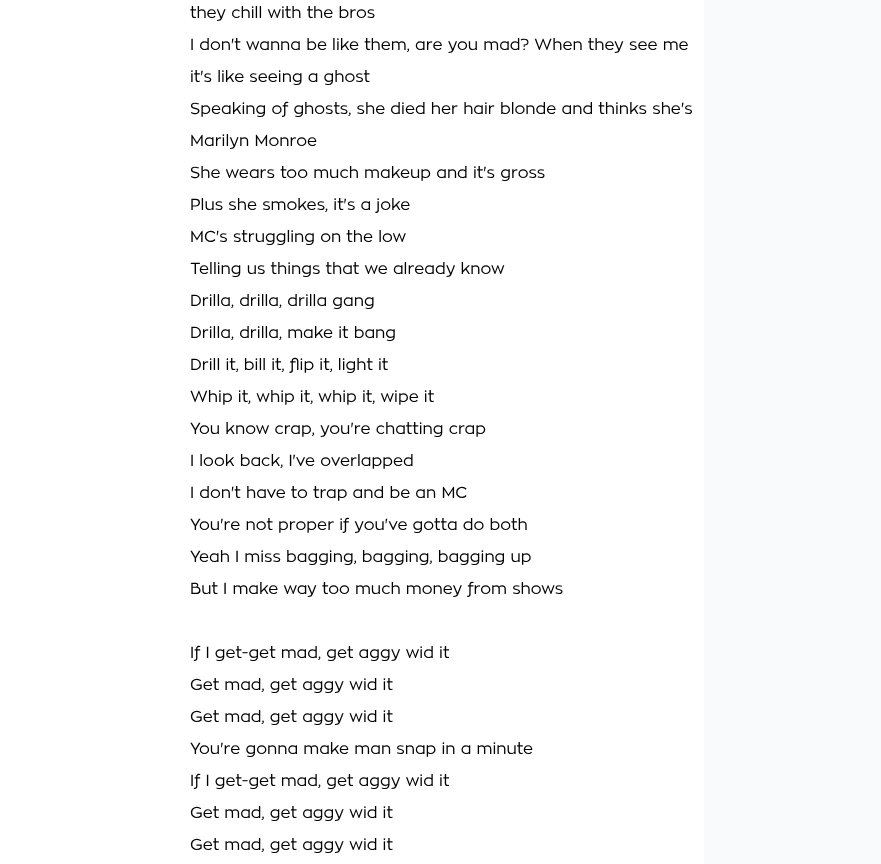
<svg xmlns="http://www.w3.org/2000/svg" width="881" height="864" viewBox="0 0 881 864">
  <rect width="100%" height="100%" fill="rgb(255,255,255)"/>
  <g font-family="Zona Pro" font-size="16" fill="rgb(0,0,0)">
    <text x="190" y="18">they chill with the bros</text>
    <text x="190" y="50">I don't wanna be like them, are you mad? When they see me</text>
    <text x="190" y="82">it's like seeing a ghost</text>
    <text x="190" y="114">Speaking of ghosts, she died her hair blonde and thinks she's</text>
    <text x="190" y="146">Marilyn Monroe</text>
    <text x="190" y="178">She wears too much makeup and it's gross</text>
    <text x="190" y="210">Plus she smokes, it's a joke</text>
    <text x="190" y="242">MC's struggling on the low</text>
    <text x="190" y="274">Telling us things that we already know</text>
    <text x="190" y="306">Drilla, drilla, drilla gang</text>
    <text x="190" y="338">Drilla, drilla, make it bang</text>
    <text x="190" y="370">Drill it, bill it, flip it, light it</text>
    <text x="190" y="402">Whip it, whip it, whip it, wipe it</text>
    <text x="190" y="434">You know crap, you're chatting crap</text>
    <text x="190" y="466">I look back, I've overlapped</text>
    <text x="190" y="498">I don't have to trap and be an MC</text>
    <text x="190" y="530">You're not proper if you've gotta do both</text>
    <text x="190" y="562">Yeah I miss bagging, bagging, bagging up</text>
    <text x="190" y="594">But I make way too much money from shows</text>
    <text x="190" y="658">If I get-get mad, get aggy wid it</text>
    <text x="190" y="690">Get mad, get aggy wid it</text>
    <text x="190" y="722">Get mad, get aggy wid it</text>
    <text x="190" y="754">You're gonna make man snap in a minute</text>
    <text x="190" y="786">If I get-get mad, get aggy wid it</text>
    <text x="190" y="818">Get mad, get aggy wid it</text>
    <text x="190" y="850">Get mad, get aggy wid it</text>
  </g>
  <rect x="704" y="0" width="177" height="864" fill="rgb(248,250,251)"/>
</svg>
